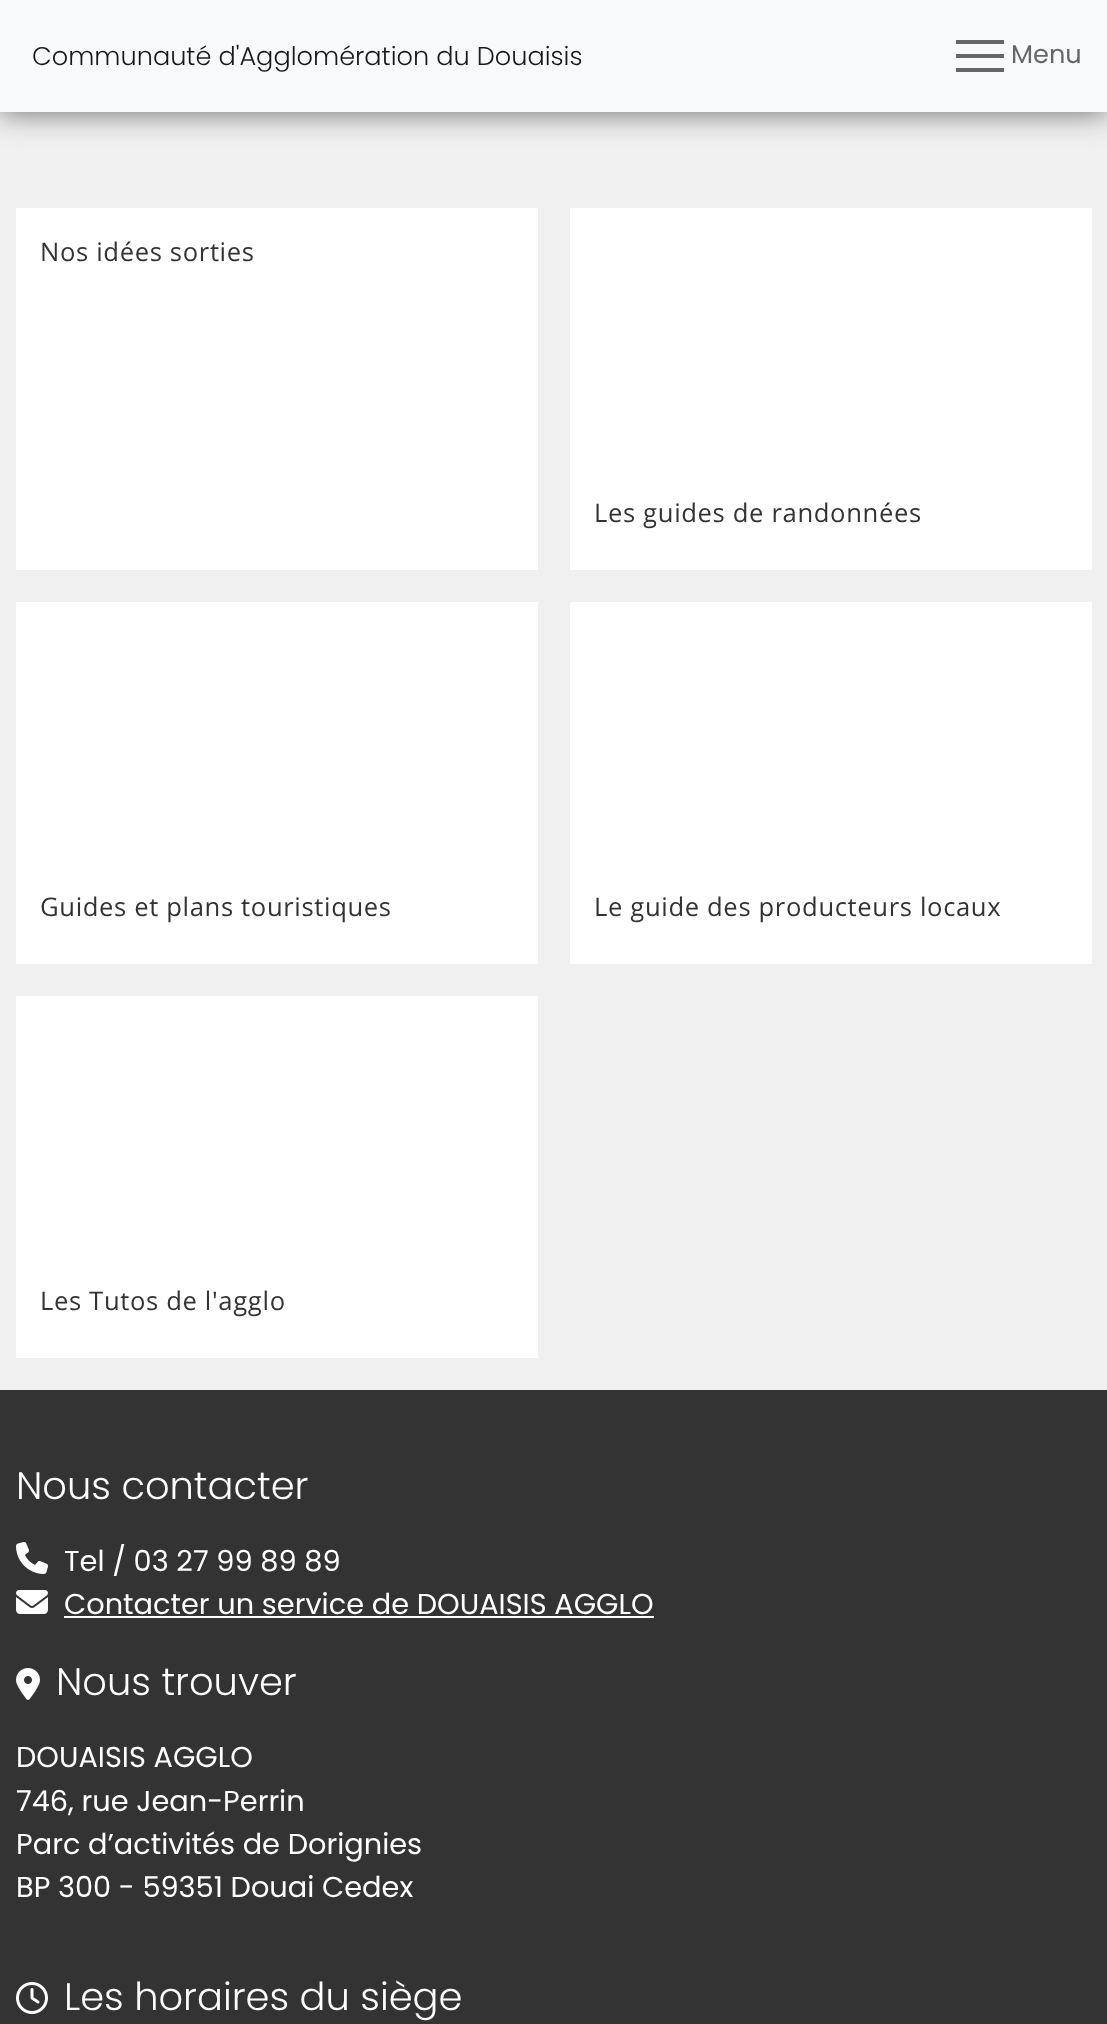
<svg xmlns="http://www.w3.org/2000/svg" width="1107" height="2024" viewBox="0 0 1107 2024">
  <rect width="100%" height="100%" fill="rgb(240,240,240)"/>
  <rect x="0" y="0" width="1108" height="112" fill="rgb(102,102,102)" filter="blur(15px)"/>
  <rect x="0" y="0" width="1107" height="112" fill="rgb(248,249,250)"/>
  <text x="32" y="65" font-family="Poppins" font-size="25.6" font-weight="300" fill="rgb(25,25,25)">Communauté d'Agglomération du Douaisis</text>
  <rect x="956" y="40" width="48" height="4" fill="rgb(102,102,102)"/>
  <rect x="956" y="54" width="48" height="4" fill="rgb(102,102,102)"/>
  <rect x="956" y="68" width="48" height="4" fill="rgb(102,102,102)"/>
  <text x="1011" y="63" font-family="Poppins" font-size="25.6" fill="rgb(102,102,102)">Menu</text>
  <rect x="16" y="208" width="522" height="362" fill="rgb(255,255,255)"/>
  <text x="40" y="261" font-family="Open Sans" font-size="25.6" letter-spacing="0.65" fill="rgb(51,51,51)">Nos idées sorties</text>
  <rect x="570" y="208" width="522" height="362" fill="rgb(255,255,255)"/>
  <text x="594" y="522" font-family="Open Sans" font-size="25.6" letter-spacing="0.65" fill="rgb(51,51,51)">Les guides de randonnées</text>
  <rect x="16" y="602" width="522" height="362" fill="rgb(255,255,255)"/>
  <text x="40" y="916" font-family="Open Sans" font-size="25.6" letter-spacing="0.65" fill="rgb(51,51,51)">Guides et plans touristiques</text>
  <rect x="570" y="602" width="522" height="362" fill="rgb(255,255,255)"/>
  <text x="594" y="916" font-family="Open Sans" font-size="25.6" letter-spacing="0.65" fill="rgb(51,51,51)">Le guide des producteurs locaux</text>
  <rect x="16" y="996" width="522" height="362" fill="rgb(255,255,255)"/>
  <text x="40" y="1310" font-family="Open Sans" font-size="25.6" letter-spacing="0.65" fill="rgb(51,51,51)">Les Tutos de l'agglo</text>
  <rect x="0" y="1390" width="1107" height="634" fill="rgb(51,51,51)"/>
  <text x="16" y="1499" font-family="Poppins" font-size="38.4" font-weight="300" fill="rgb(255,255,255)">Nous contacter</text>
  <image x="16" y="1542" width="32" height="32" href="pic1.png"/>
  <text x="64" y="1571" font-family="Poppins" font-size="28.8" fill="rgb(255,255,255)">Tel / 03 27 99 89 89</text>
  <image x="16" y="1590" width="32" height="24" href="pic2.png"/>
  <text x="64" y="1614" font-family="Poppins" font-size="28.8" fill="rgb(255,255,255)">Contacter un service de DOUAISIS AGGLO</text>
  <rect x="64" y="1616" width="590" height="2" fill="rgb(255,255,255)"/>
  <image x="16" y="1668" width="24" height="32" href="pic3.png"/>
  <text x="56" y="1695" font-family="Poppins" font-size="38.4" font-weight="300" fill="rgb(255,255,255)">Nous trouver</text>
  <g font-family="Poppins" font-size="28.8" fill="rgb(255,255,255)">
    <text>
      <tspan x="16" y="1767">DOUAISIS AGGLO</tspan>
      <tspan x="16" y="1811">746, rue Jean-Perrin</tspan>
      <tspan x="16" y="1854">Parc d’activités de Dorignies</tspan>
      <tspan x="16" y="1897">BP 300 - 59351 Douai Cedex</tspan>
    </text>
  </g>
  <image x="16" y="1982" width="32" height="32" href="pic4.png"/>
  <text x="64" y="2010" font-family="Poppins" font-size="38.4" font-weight="300" fill="rgb(255,255,255)">Les horaires du siège</text>
</svg>
